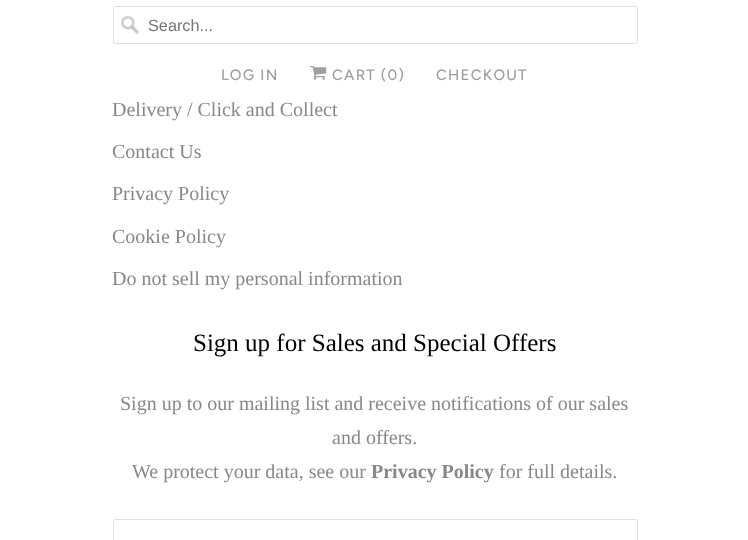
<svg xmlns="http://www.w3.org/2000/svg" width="748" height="540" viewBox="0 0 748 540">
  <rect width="100%" height="100%" fill="rgb(255,255,255)"/>
  <image x="121" y="16" width="18" height="18" href="pic1.png"/>
  <rect x="113.5" y="6.5" width="524" height="37" rx="2" fill="none" stroke="rgb(223,223,223)"/>
  <text x="148" y="31" font-family="Liberation Sans" font-size="16.25" fill="rgb(117,117,117)">Search...</text>
  <text x="221" y="80" font-family="Figtree" font-size="15" font-weight="500" letter-spacing="1.25" fill="rgb(159,159,159)">LOG IN</text>
  <image x="310" y="66" width="17" height="14" href="pic2.png"/>
  <g font-family="Figtree" font-size="15" font-weight="500" letter-spacing="1.25" fill="rgb(159,159,159)">
    <text x="332" y="80">CART (0)</text>
    <text x="436" y="80">CHECKOUT</text>
  </g>
  <g font-family="Liberation Serif" font-size="20" fill="rgb(136,136,136)">
    <text x="112" y="116">Delivery / Click and Collect</text>
    <text x="112" y="158">Contact Us</text>
    <text x="112" y="200">Privacy Policy</text>
    <text x="112" y="243">Cookie Policy</text>
    <text x="112" y="285">Do not sell my personal information</text>
  </g>
  <text x="193" y="351" font-family="Liberation Serif" font-size="25" fill="rgb(0,0,0)">Sign up for Sales and Special Offers</text>
  <g font-family="Liberation Serif" font-size="20" fill="rgb(136,136,136)">
    <text x="120" y="410">Sign up to our mailing list and receive notifications of our sales</text>
    <text x="332" y="444">and offers.</text>
    <text x="132" y="478">We protect your data, see our</text>
  </g>
  <text x="371" y="478" font-family="Liberation Serif" font-size="20" font-weight="bold" fill="rgb(136,136,136)">Privacy Policy</text>
  <text x="499" y="478" font-family="Liberation Serif" font-size="20" fill="rgb(136,136,136)">for full details.</text>
  <rect x="113.5" y="519.5" width="524" height="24" rx="2" fill="none" stroke="rgb(223,223,223)"/>
</svg>
